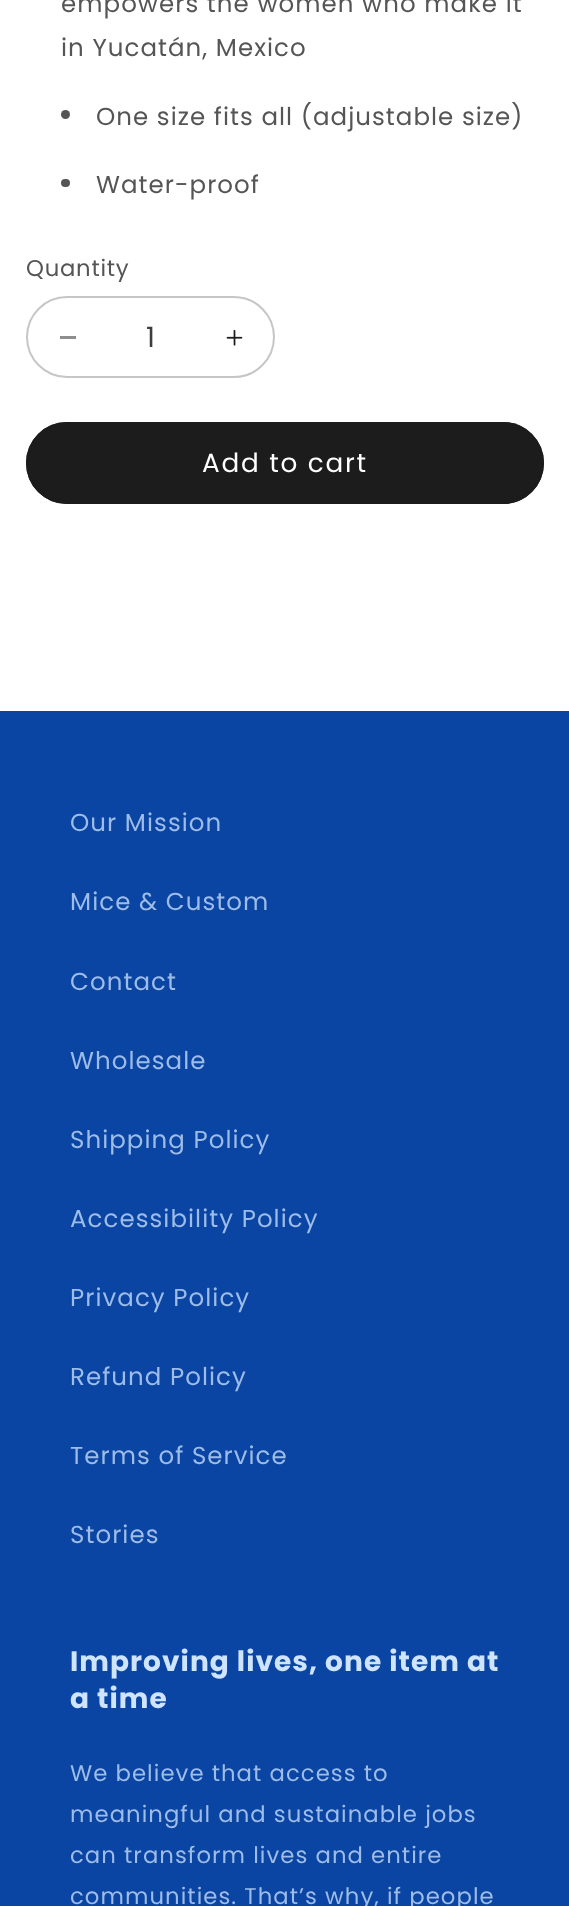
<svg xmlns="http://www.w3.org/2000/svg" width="569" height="1906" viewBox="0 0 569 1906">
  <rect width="100%" height="100%" fill="rgb(255,255,255)"/>
  <g font-family="Poppins" font-size="24.5" letter-spacing="1.05" fill="rgb(85,85,85)">
    <text>
      <tspan x="61" y="12">empowers the women who make it</tspan>
      <tspan x="61" y="56">in Yucatán, Mexico</tspan>
    </text>
  </g>
  <circle cx="65.5" cy="114.5" r="4.5" fill="rgb(85,85,85)"/>
  <text x="96" y="125" font-family="Poppins" font-size="24.5" letter-spacing="1.05" fill="rgb(85,85,85)">One size fits all (adjustable size)</text>
  <rect x="61" y="179" width="9" height="8" rx="4" fill="rgb(85,85,85)"/>
  <text x="96" y="193" font-family="Poppins" font-size="24.5" letter-spacing="1.05" fill="rgb(85,85,85)">Water-proof</text>
  <text x="26" y="276" font-family="Poppins" font-size="22.75" letter-spacing="0.75" fill="rgb(85,85,85)">Quantity</text>
  <rect x="60" y="336" width="16" height="3" fill="rgb(142,142,142)"/>
  <image x="226" y="329" width="17" height="17" href="pic1.png"/>
  <rect x="27" y="297" width="247" height="80" rx="40" fill="none" stroke="rgb(198,198,198)" stroke-width="2"/>
  <text x="146" y="347" font-family="Poppins" font-size="28" fill="rgb(62,62,62)">1</text>
  <rect x="26" y="422" width="518" height="82" rx="41" fill="rgb(28,28,28)"/>
  <rect x="27" y="423" width="516" height="80" rx="40" fill="none" stroke="rgb(28,28,28)" stroke-width="2"/>
  <text x="202" y="472" font-family="Poppins" font-size="26.25" letter-spacing="1.75" fill="rgb(255,255,255)">Add to cart</text>
  <rect x="0" y="711" width="569" height="1195" fill="rgb(10,69,163)"/>
  <g font-family="Poppins" font-size="24.5" letter-spacing="1.05" fill="rgb(157,188,232)">
    <text x="70" y="831">Our Mission</text>
    <text x="70" y="910">Mice &amp; Custom</text>
    <text x="70" y="990">Contact</text>
    <text x="70" y="1069">Wholesale</text>
    <text x="70" y="1148">Shipping Policy</text>
    <text x="70" y="1227">Accessibility Policy</text>
    <text x="70" y="1306">Privacy Policy</text>
    <text x="70" y="1385">Refund Policy</text>
    <text x="70" y="1464">Terms of Service</text>
    <text x="70" y="1543">Stories</text>
  </g>
  <g font-family="Poppins" font-size="28" font-weight="bold" letter-spacing="1.05" fill="rgb(206,228,255)">
    <text>
      <tspan x="70" y="1671">Improving lives, one item at</tspan>
      <tspan x="70" y="1708">a time</tspan>
    </text>
  </g>
  <g font-family="Poppins" font-size="22.75" letter-spacing="1.05" fill="rgb(157,188,232)">
    <text>
      <tspan x="70" y="1781">We believe that access to</tspan>
      <tspan x="70" y="1822">meaningful and sustainable jobs</tspan>
      <tspan x="70" y="1863">can transform lives and entire</tspan>
      <tspan x="70" y="1904">communities. That’s why, if people</tspan>
    </text>
  </g>
</svg>
